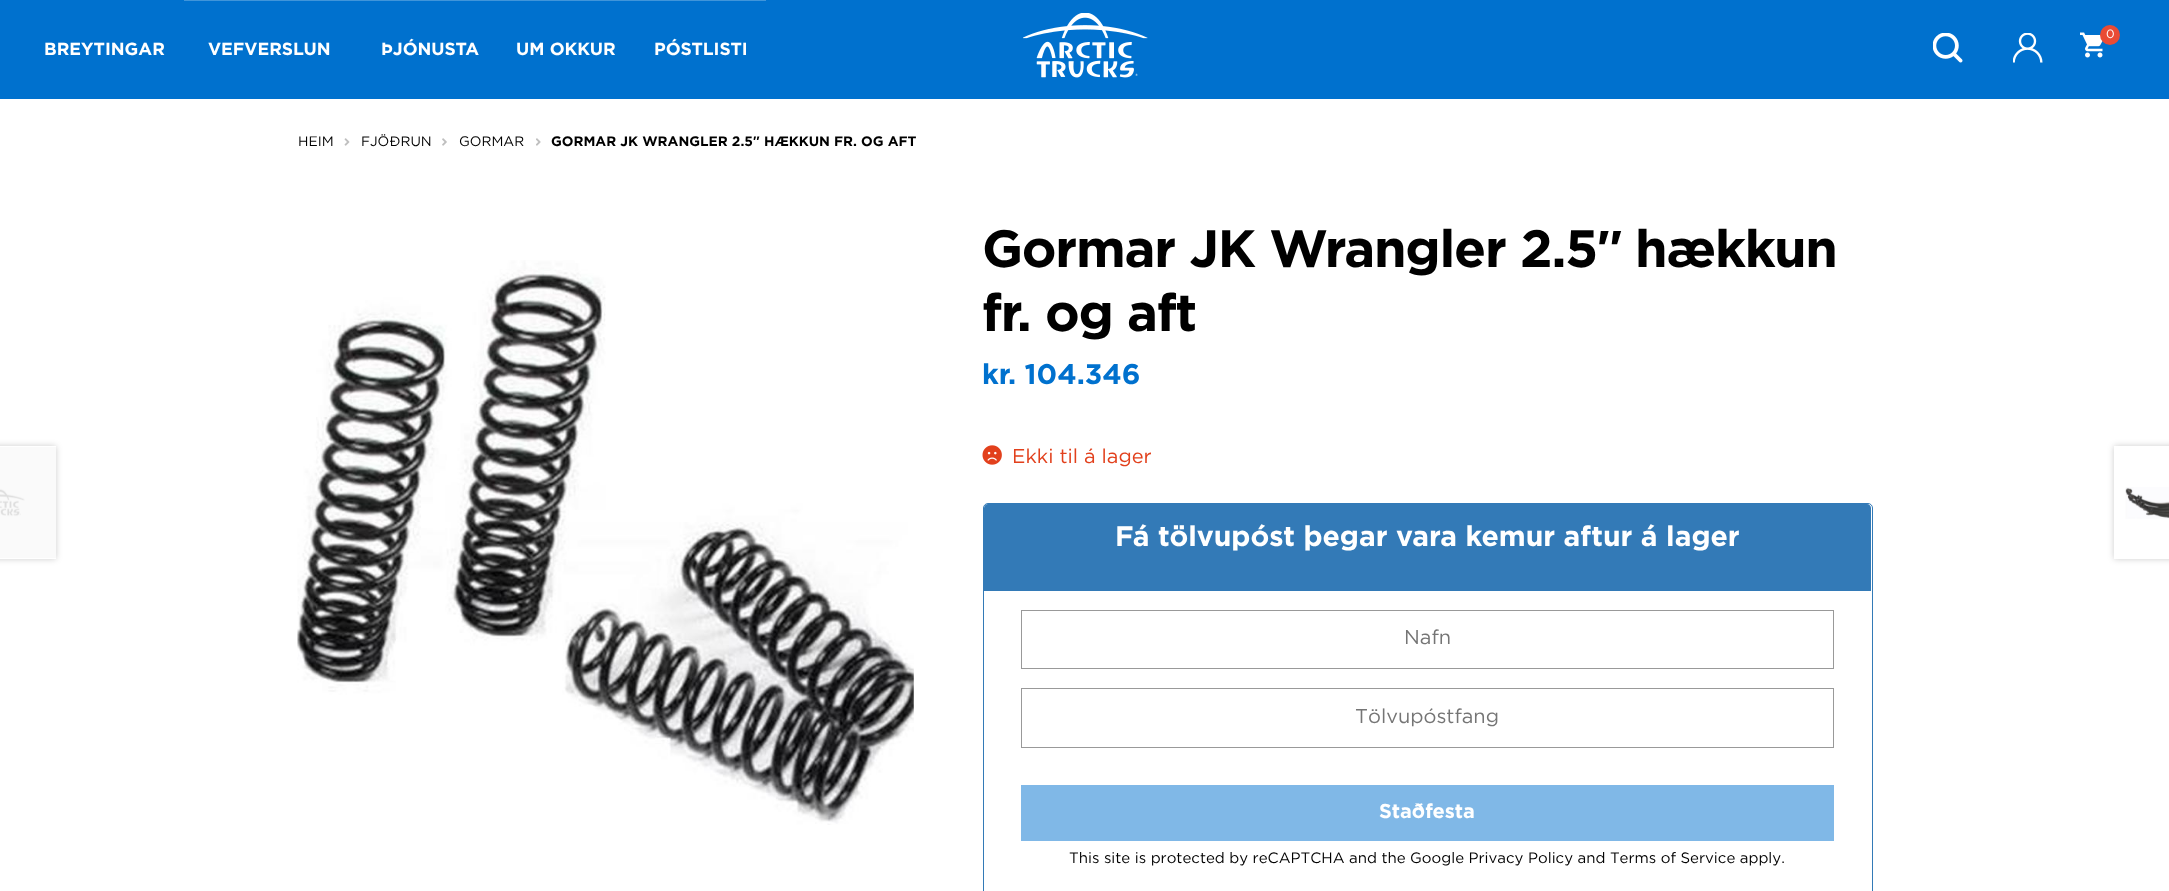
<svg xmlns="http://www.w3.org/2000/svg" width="2169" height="891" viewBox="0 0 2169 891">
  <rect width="100%" height="100%" fill="rgb(255,255,255)"/>
  <rect x="0" y="0" width="2169" height="99" fill="rgb(0,113,206)"/>
  <image x="1023" y="13" width="125" height="65" href="pic1.png"/>
  <image x="1933" y="33" width="30" height="30" href="pic2.png"/>
  <image x="2013" y="33" width="30" height="30" href="pic3.png"/>
  <image x="2080" y="32" width="23" height="26" href="pic4.png"/>
  <circle cx="2110" cy="35" r="10" fill="rgb(233,75,53)"/>
  <text x="2106" y="38" font-family="Gotham" font-size="12" fill="rgb(255,255,255)">0</text>
  <text x="44" y="55" font-family="Gotham" font-size="17.5" font-weight="bold" fill="rgb(255,255,255)">BREYTINGAR</text>
  <rect x="184" y="0" width="582" height="1" fill="rgb(64,149,218)"/>
  <g font-family="Gotham" font-size="17.5" font-weight="bold" fill="rgb(255,255,255)">
    <text x="208" y="55">VEFVERSLUN</text>
    <text x="381" y="55">ÞJÓNUSTA</text>
    <text x="516" y="55">UM OKKUR</text>
    <text x="654" y="55">PÓSTLISTI</text>
  </g>
  <text x="298" y="146" font-family="Gotham" font-size="13.75" fill="rgb(0,0,0)">HEIM</text>
  <image x="344" y="138" width="6" height="8" href="pic5.png"/>
  <text x="361" y="146" font-family="Gotham" font-size="13.75" fill="rgb(0,0,0)">FJÖÐRUN</text>
  <image x="442" y="138" width="5" height="8" href="pic6.png"/>
  <text x="459" y="146" font-family="Gotham" font-size="13.75" fill="rgb(0,0,0)">GORMAR</text>
  <image x="536" y="138" width="5" height="8" href="pic7.png"/>
  <text x="551" y="146" font-family="Gotham" font-size="13.75" font-weight="bold" fill="rgb(0,0,0)">GORMAR JK WRANGLER 2.5</text>
  <text x="753" y="146" font-family="Liberation Sans" font-size="13.75" font-weight="bold" fill="rgb(0,0,0)">″</text>
  <text x="764" y="146" font-family="Gotham" font-size="13.75" font-weight="bold" fill="rgb(0,0,0)">HÆKKUN FR. OG AFT</text>
  <image x="297" y="260" width="617" height="565" href="pic8.png"/>
  <text x="982" y="267" font-family="Gotham" font-size="52.4" font-weight="bold" letter-spacing="-1.25" fill="rgb(0,0,0)">Gormar JK Wrangler 2.5</text>
  <text x="1597" y="267" font-family="Liberation Sans" font-size="52.4" font-weight="bold" letter-spacing="-1.25" fill="rgb(0,0,0)">″</text>
  <g font-family="Gotham" font-size="52.4" font-weight="bold" letter-spacing="-1.25" fill="rgb(0,0,0)">
    <text x="1635" y="267">hækkun</text>
    <text x="982" y="331">fr. og aft</text>
  </g>
  <text x="982" y="384" font-family="Gotham" font-size="28.3" font-weight="bold" fill="rgb(0,113,206)">kr. 104.346</text>
  <image x="982" y="445" width="20" height="20" href="pic9.png"/>
  <text x="1012" y="463" font-family="Gotham" font-size="20" fill="rgb(226,64,28)">Ekki til á lager</text>
  <rect x="983.5" y="503.5" width="889" height="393" rx="4.5" fill="none" stroke="rgb(51,122,183)"/>
  <path d="M988 504H1867C1869 504 1871 506 1871 508V591H984V508C984 506 986 504 988 504Z" fill="rgb(51,122,183)"/>
  <text x="1115" y="546" font-family="Gotham" font-size="28.3" font-weight="bold" fill="rgb(255,255,255)">Fá tölvupóst þegar vara kemur aftur á lager</text>
  <rect x="1021.5" y="610.5" width="812" height="58" fill="none" stroke="rgb(153,153,153)"/>
  <text x="1404" y="644" font-family="Gotham" font-size="20" fill="rgb(117,117,117)">Nafn</text>
  <rect x="1021.5" y="688.5" width="812" height="59" fill="none" stroke="rgb(153,153,153)"/>
  <text x="1355" y="723" font-family="Gotham" font-size="20" fill="rgb(117,117,117)">Tölvupóstfang</text>
  <rect x="1021" y="785" width="813" height="56" fill="rgb(128,184,231)"/>
  <text x="1379" y="818" font-family="Gotham" font-size="20" font-weight="bold" fill="rgb(255,255,255)">Staðfesta</text>
  <text x="1069" y="863" font-family="Gotham" font-size="15" fill="rgb(0,0,0)">This site is protected by reCAPTCHA and the Google Privacy Policy and Terms of Service apply.</text>
  <rect x="-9" y="446" width="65" height="113" fill="rgba(0,0,0,0.2)" filter="blur(3px)"/>
  <rect x="0" y="446" width="56" height="113" fill="rgb(255,255,255)"/>
  <image x="0" y="447" width="56" height="111" href="pic10.png"/>
  <rect x="2114" y="446" width="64" height="113" fill="rgba(0,0,0,0.2)" filter="blur(3px)"/>
  <rect x="2114" y="446" width="55" height="113" fill="rgb(255,255,255)"/>
  <image x="2125" y="487" width="44" height="32" href="pic11.png"/>
</svg>
